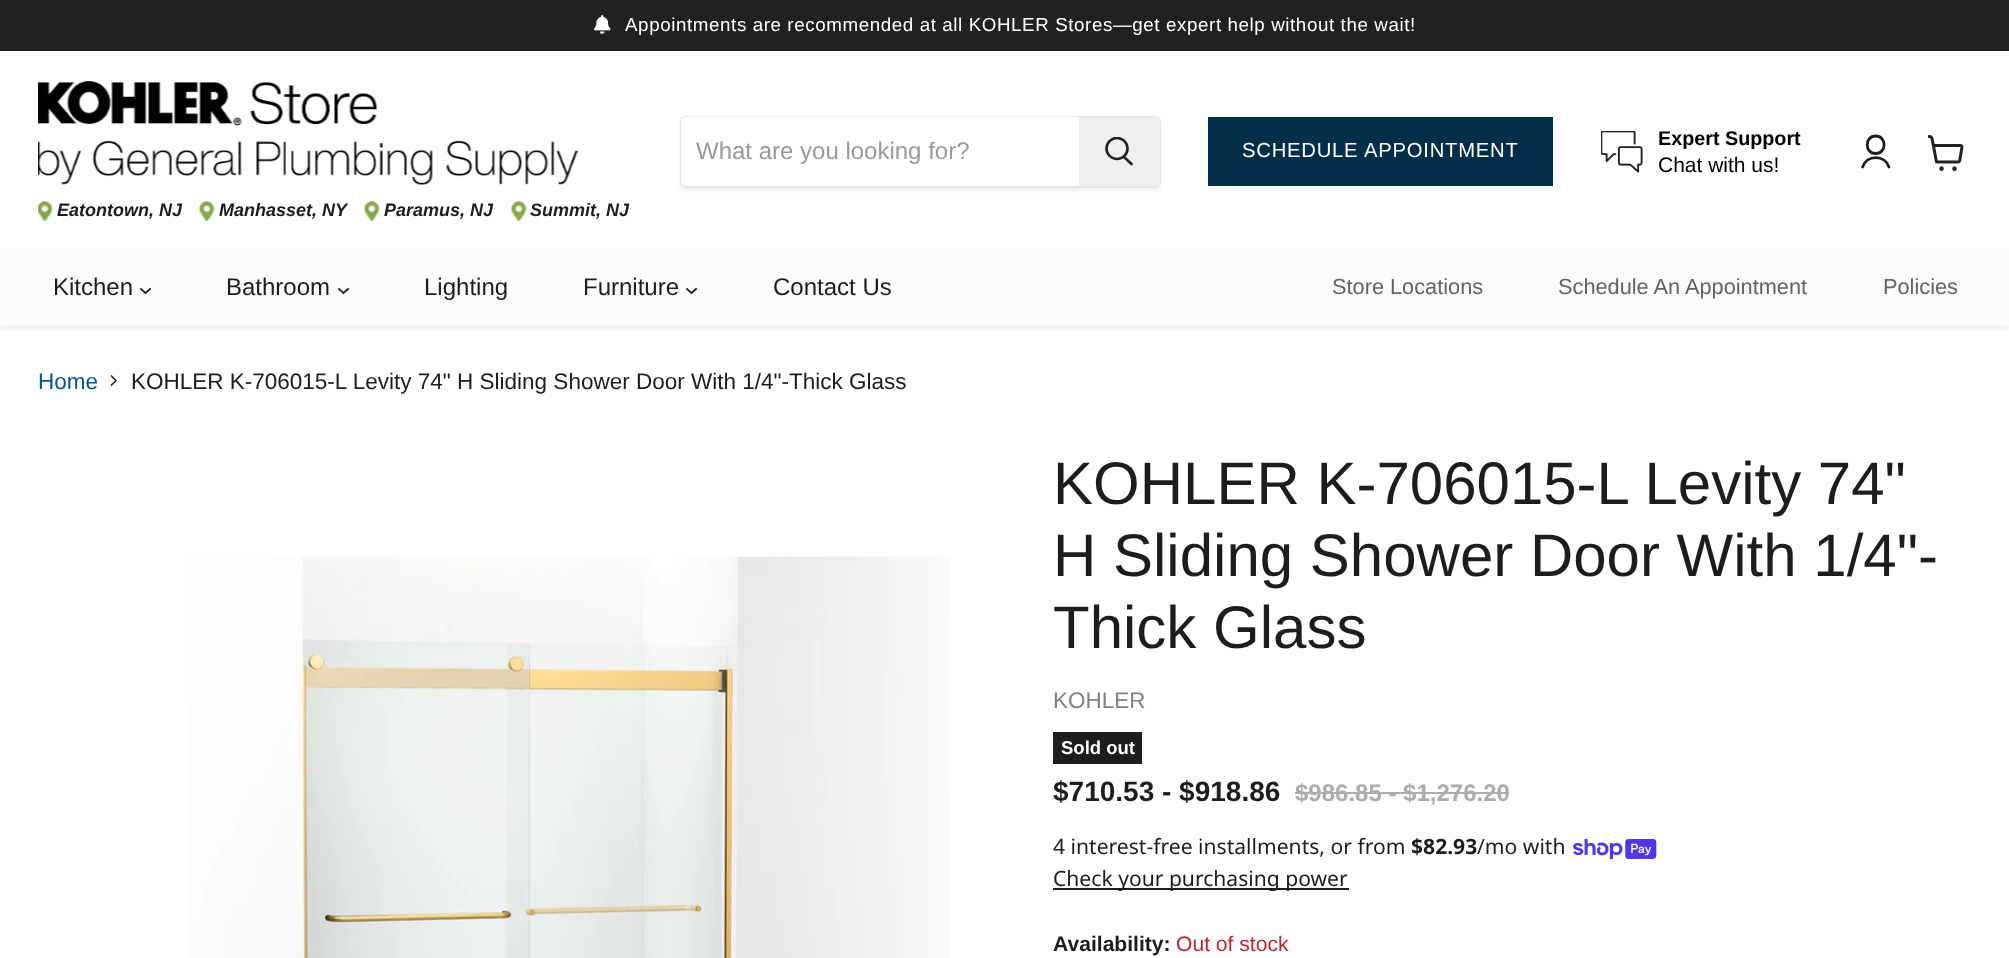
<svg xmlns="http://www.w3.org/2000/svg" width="2009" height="958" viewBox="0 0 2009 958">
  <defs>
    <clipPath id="clip1"><path d="M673 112H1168V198H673ZM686 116H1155C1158.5 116 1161 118.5 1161 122V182C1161 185.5 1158.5 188 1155 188H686C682.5 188 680 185.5 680 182V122C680 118.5 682.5 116 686 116Z" clip-rule="evenodd"/></clipPath>
    <clipPath id="clip2"><rect x="1104" y="137" width="30" height="31"/></clipPath>
  </defs>
  <rect width="100%" height="100%" fill="rgb(255,255,255)"/>
  <rect x="0" y="53" width="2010" height="274" fill="rgba(128,128,128,0.25)" filter="blur(3px)"/>
  <rect x="0" y="0" width="2009" height="51" fill="rgb(33,33,33)"/>
  <image x="594" y="15" width="17" height="19" href="pic1.png"/>
  <text x="625" y="31" font-family="Liberation Sans" font-size="18.75" letter-spacing="0.6" fill="rgb(255,255,255)">Appointments are recommended at all KOHLER Stores—get expert help without the wait!</text>
  <rect x="0" y="51" width="2009" height="198" fill="rgb(255,255,255)"/>
  <g clip-path="url(#clip1)">
    <rect x="680" y="119" width="481" height="72" rx="6" fill="rgba(128,128,128,0.11)" filter="blur(2px)"/>
  </g>
  <rect x="681" y="117" width="479" height="70" rx="5" fill="none" stroke="rgba(128,128,128,0.2)" stroke-width="2"/>
  <path d="M686 117H1079V186H686C683 186 681 184 681 181V122C681 119 683 117 686 117Z" fill="rgb(255,255,255)"/>
  <text x="696" y="159" font-family="Liberation Sans" font-size="24" fill="rgb(153,153,153)">What are you looking for?</text>
  <rect x="1079" y="117" width="81" height="69" fill="rgb(239,239,239)"/>
  <path d="M1131.5 164L1124 157" fill="none" stroke="rgb(34,34,34)" stroke-width="2.6" stroke-linecap="round"/>
  <g clip-path="url(#clip2)">
    <circle cx="1117" cy="148.5" r="10.5" fill="none" stroke="rgb(34,34,34)" stroke-width="2.6"/>
  </g>
  <rect x="1208" y="117" width="345" height="69" fill="rgb(2,46,73)"/>
  <g font-family="Liberation Sans" font-size="20.25" letter-spacing="0.75" fill="rgb(255,255,255)">
    <text x="1242" y="157">SCHEDULE</text>
    <text x="1364" y="157">APPOINTMENT</text>
  </g>
  <image x="1601" y="131" width="42" height="42" href="pic2.png"/>
  <text x="1658" y="145" font-family="Liberation Sans" font-size="19.75" font-weight="bold" fill="rgb(0,0,0)">Expert Support</text>
  <text x="1658" y="172" font-family="Liberation Sans" font-size="21" fill="rgb(0,0,0)">Chat with us!</text>
  <image x="38" y="81" width="540" height="104" href="pic3.png"/>
  <image x="38" y="201" width="15" height="21" href="pic4.png"/>
  <text x="57" y="216" font-family="Liberation Sans" font-size="18" font-weight="bold" font-style="italic" fill="rgb(29,29,29)">Eatontown, NJ</text>
  <image x="199" y="201" width="16" height="21" href="pic5.png"/>
  <text x="219" y="216" font-family="Liberation Sans" font-size="18" font-weight="bold" font-style="italic" fill="rgb(29,29,29)">Manhasset, NY</text>
  <image x="364" y="201" width="16" height="21" href="pic6.png"/>
  <text x="384" y="216" font-family="Liberation Sans" font-size="18" font-weight="bold" font-style="italic" fill="rgb(29,29,29)">Paramus, NJ</text>
  <image x="511" y="201" width="16" height="21" href="pic5.png"/>
  <text x="530" y="216" font-family="Liberation Sans" font-size="18" font-weight="bold" font-style="italic" fill="rgb(29,29,29)">Summit, NJ</text>
  <path d="M1875.5 153.5C1887 153.5 1887 136 1875.5 136C1864.5 136 1864.5 153.5 1875.5 153.5ZM1889 167C1884.5 154.5 1867 154.5 1862.5 167" fill="none" stroke="rgb(29,29,29)" stroke-width="2.8" stroke-linecap="round" stroke-linejoin="round"/>
  <image x="1928" y="135" width="36" height="36" href="pic7.png"/>
  <rect x="0" y="249" width="2009" height="77" fill="rgb(251,251,251)"/>
  <text x="53" y="295" font-family="Liberation Sans" font-size="24" fill="rgb(29,29,29)">Kitchen</text>
  <path d="M145.5 293L150 289M145.5 293L141 289" fill="none" stroke="rgb(34,34,34)" stroke-width="1.9" stroke-linecap="square"/>
  <text x="226" y="295" font-family="Liberation Sans" font-size="24" fill="rgb(29,29,29)">Bathroom</text>
  <path d="M343.5 293L348 289M343.5 293L339 289" fill="none" stroke="rgb(34,34,34)" stroke-width="1.9" stroke-linecap="square"/>
  <g font-family="Liberation Sans" font-size="24" fill="rgb(29,29,29)">
    <text x="424" y="295">Lighting</text>
    <text x="583" y="295">Furniture</text>
  </g>
  <path d="M691.5 293L696 289M691.5 293L687 289" fill="none" stroke="rgb(34,34,34)" stroke-width="1.9" stroke-linecap="square"/>
  <text x="773" y="295" font-family="Liberation Sans" font-size="24" fill="rgb(29,29,29)">Contact Us</text>
  <g font-family="Liberation Sans" font-size="21.75" fill="rgb(99,99,99)">
    <text x="1332" y="294">Store Locations</text>
    <text x="1558" y="294">Schedule An Appointment</text>
    <text x="1883" y="294">Policies</text>
  </g>
  <text x="38" y="389" font-family="Liberation Sans" font-size="22.5" fill="rgb(0,86,150)">Home</text>
  <image x="110" y="375" width="7" height="11" href="pic8.png"/>
  <text x="131" y="389" font-family="Liberation Sans" font-size="22.5" fill="rgb(29,29,29)">KOHLER K-706015-L Levity 74" H Sliding Shower Door With 1/4"-Thick Glass</text>
  <image x="187" y="556" width="763" height="402" href="pic9.png"/>
  <g font-family="Liberation Sans" font-size="60" fill="rgb(29,29,29)">
    <text>
      <tspan x="1053" y="504">KOHLER K-706015-L Levity 74"</tspan>
      <tspan x="1053" y="576">H Sliding Shower Door With 1/4"-</tspan>
      <tspan x="1053" y="648">Thick Glass</tspan>
    </text>
  </g>
  <text x="1053" y="708" font-family="Liberation Sans" font-size="22.5" fill="rgb(128,128,128)">KOHLER</text>
  <rect x="1053" y="732" width="89" height="32" fill="rgb(29,29,29)"/>
  <text x="1061" y="754" font-family="Liberation Sans" font-size="18.5" font-weight="bold" fill="rgb(255,255,255)">Sold out</text>
  <text x="1053" y="801" font-family="Liberation Sans" font-size="28" font-weight="bold" fill="rgb(29,29,29)">$710.53 - $918.86</text>
  <text x="1295" y="801" font-family="Liberation Sans" font-size="24" font-weight="bold" fill="rgb(172,172,172)">$986.85 - $1,276.20</text>
  <rect x="1295" y="792" width="214" height="2" fill="rgb(172,172,172)"/>
  <text x="1053" y="854" font-family="Noto Sans" font-size="21.1" fill="rgb(29,29,29)">4 interest-free installments, or from</text>
  <text x="1411" y="854" font-family="Noto Sans" font-size="21.1" font-weight="bold" fill="rgb(29,29,29)">$82.93</text>
  <text x="1477" y="854" font-family="Noto Sans" font-size="21.1" fill="rgb(29,29,29)">/mo with</text>
  <image x="1573" y="839" width="84" height="21" href="pic10.png"/>
  <rect x="1053" y="888" width="296" height="2" fill="rgb(29,29,29)"/>
  <text x="1053" y="886" font-family="Noto Sans" font-size="21.1" fill="rgb(29,29,29)">Check your purchasing power</text>
  <text x="1053" y="951" font-family="Liberation Sans" font-size="21.1" font-weight="bold" fill="rgb(29,29,29)">Availability:</text>
  <text x="1176" y="951" font-family="Liberation Sans" font-size="21.1" fill="rgb(191,38,47)">Out of stock</text>
</svg>
